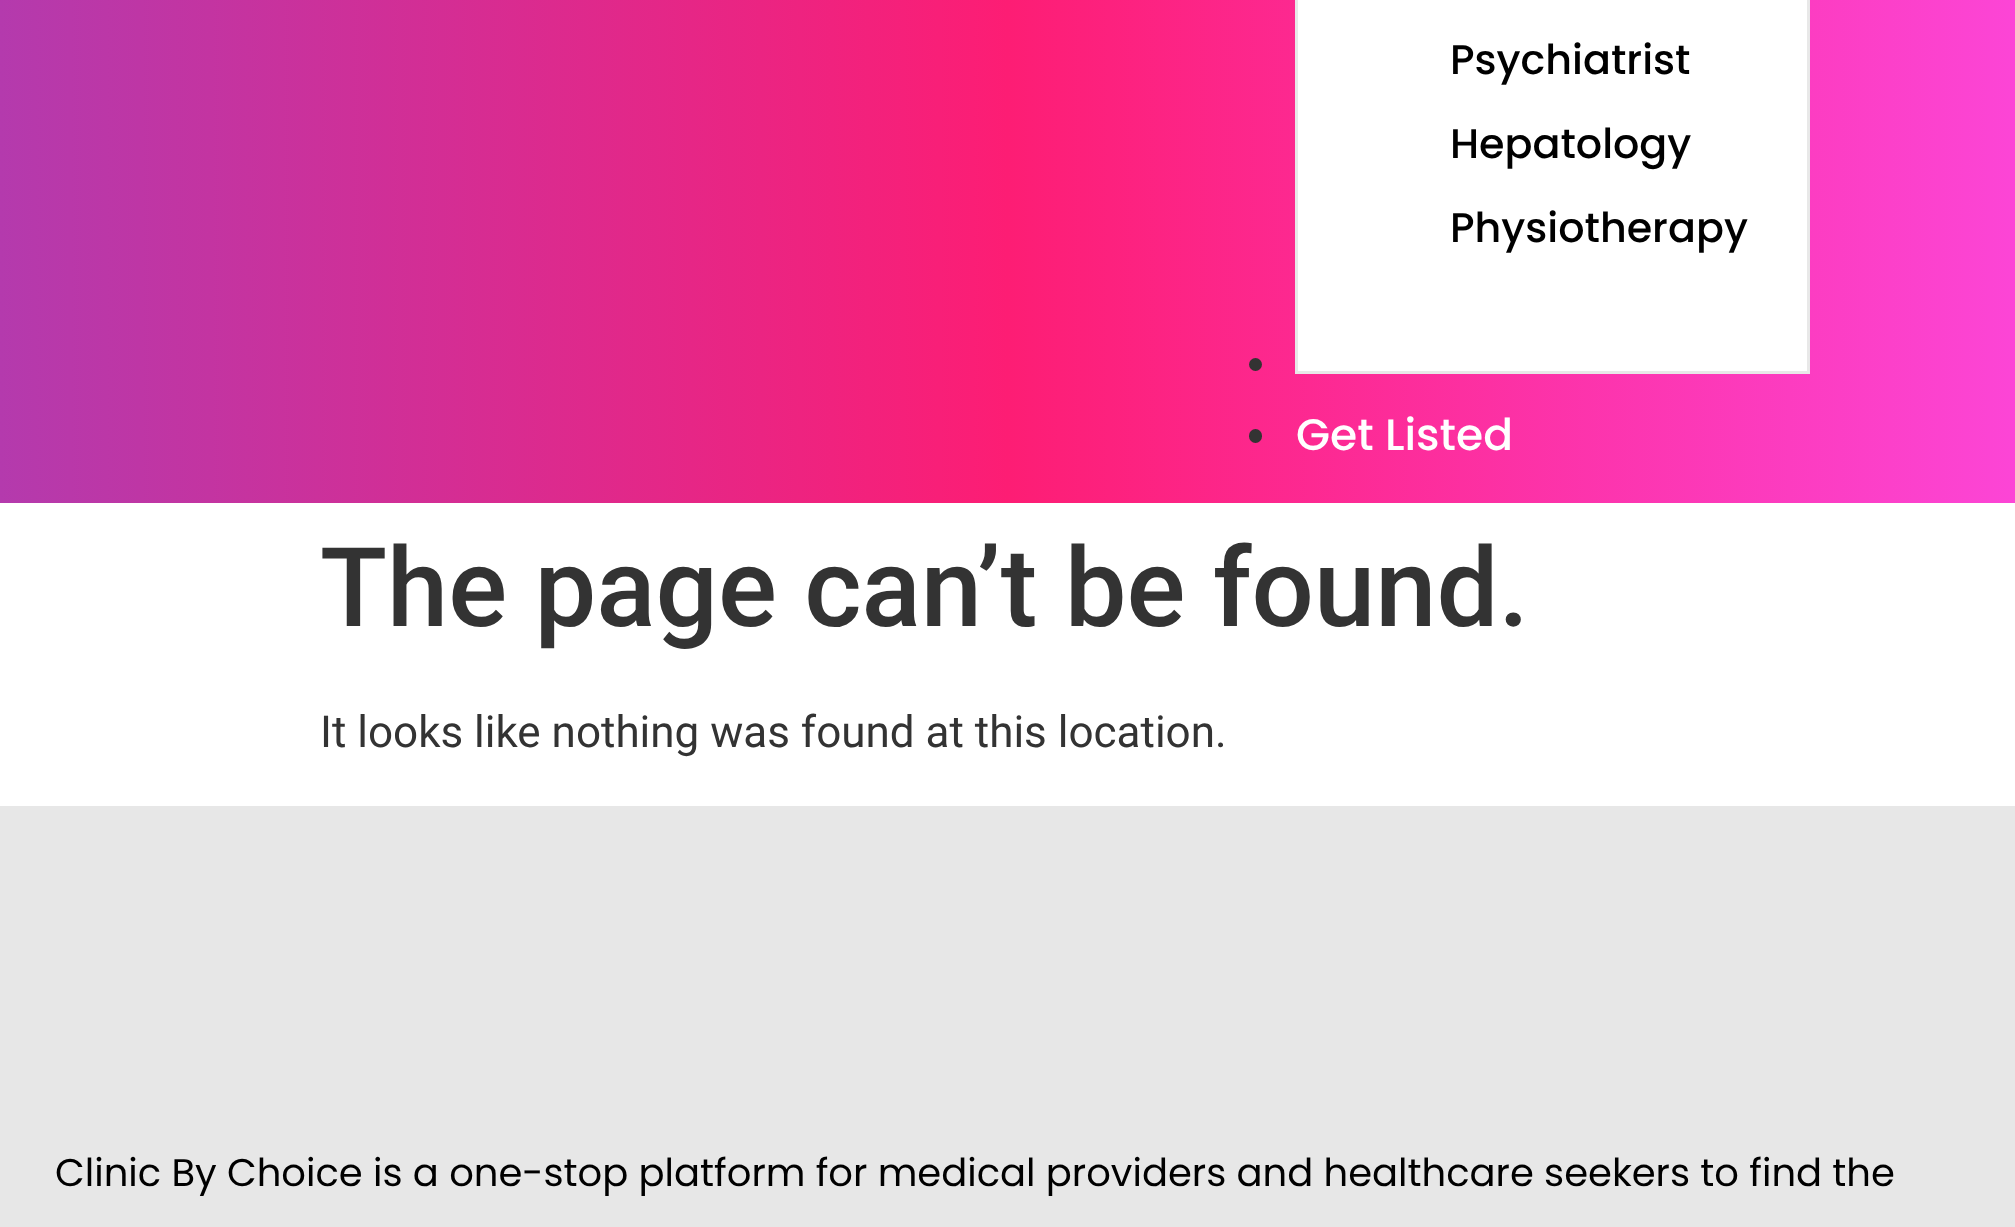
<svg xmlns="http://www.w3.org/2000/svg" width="2015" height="1227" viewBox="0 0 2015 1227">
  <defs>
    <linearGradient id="g1" gradientUnits="userSpaceOnUse" x1="0" y1="-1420" x2="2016" y2="-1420"><stop offset="0" stop-color="rgb(180,58,173)"/><stop offset="0.5" stop-color="rgb(253,29,116)"/><stop offset="1" stop-color="rgb(252,69,214)"/></linearGradient>
  </defs>
  <rect width="100%" height="100%" fill="rgb(255,255,255)"/>
  <rect x="0" y="0" width="2015" height="503" fill="url(#g1)"/>
  <rect x="1296.5" y="-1.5" width="512" height="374" fill="rgb(255,255,255)" stroke="rgb(232,232,232)" stroke-width="3"/>
  <g font-family="Poppins" font-size="41.25" font-weight="500" fill="rgb(0,0,0)">
    <text x="1450" y="74">Psychiatrist</text>
    <text x="1450" y="158">Hepatology</text>
    <text x="1450" y="242">Physiotherapy</text>
  </g>
  <circle cx="1255.5" cy="364.5" r="6.5" fill="rgb(51,51,51)"/>
  <rect x="1249" y="429" width="13" height="14" rx="6.5" fill="rgb(51,51,51)"/>
  <text x="1296" y="450" font-family="Poppins" font-size="44" font-weight="500" fill="rgb(255,255,255)">Get Listed</text>
  <text x="320" y="626" font-family="Roboto" font-size="110" font-weight="500" fill="rgb(51,51,51)">The page can’t be found.</text>
  <text x="320" y="747" font-family="Roboto" font-size="44" fill="rgb(51,51,51)">It looks like nothing was found at this location.</text>
  <rect x="0" y="806" width="2015" height="421" fill="rgb(231,231,231)"/>
  <text x="55" y="1186" font-family="Poppins" font-size="38.5" fill="rgb(0,0,0)">Clinic By Choice is a one-stop platform for medical providers and healthcare seekers to find the</text>
</svg>
